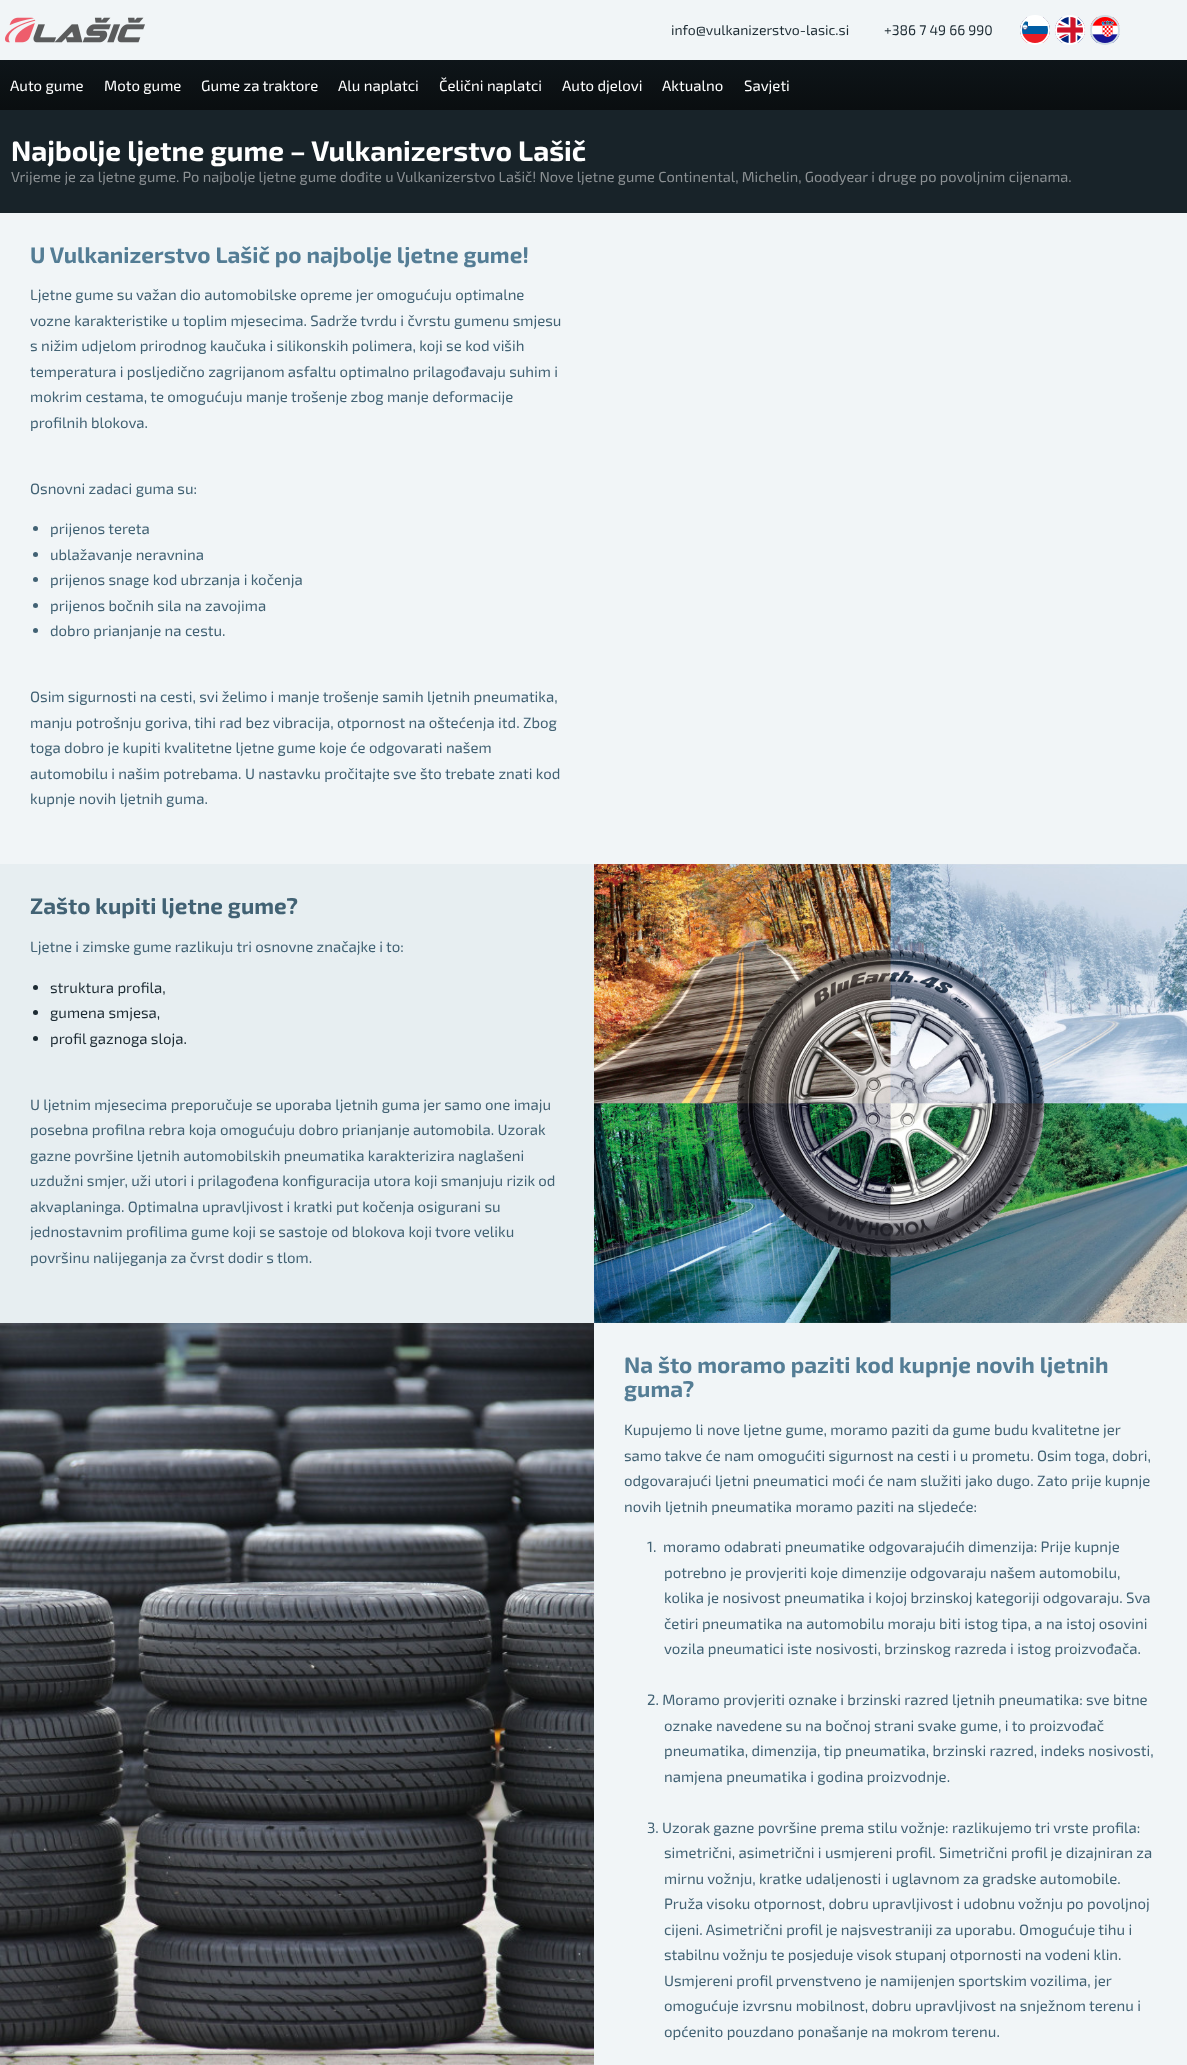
<svg xmlns="http://www.w3.org/2000/svg" width="1187" height="2065" viewBox="0 0 1187 2065">
  <defs>
    <linearGradient id="g1" gradientUnits="userSpaceOnUse" x1="594" y1="60" x2="594" y2="110"><stop offset="0" stop-color="rgb(14,21,25)"/><stop offset="1" stop-color="rgb(10,14,16)"/></linearGradient>
  </defs>
  <rect width="100%" height="100%" fill="rgb(241,245,247)"/>
  <image x="5" y="17" width="140" height="26" href="pic1.png"/>
  <g font-family="'Exo 2'" font-size="14" fill="rgb(29,43,51)">
    <text x="671" y="35">info@vulkanizerstvo-lasic.si</text>
    <text x="884" y="35">+386 7 49 66 990</text>
  </g>
  <image x="1020" y="17" width="30" height="26" href="pic2.png"/>
  <circle cx="1035" cy="30" r="14" fill="none" stroke="rgb(255,255,255)" stroke-width="2"/>
  <image x="1055" y="17" width="30" height="26" href="pic3.png"/>
  <circle cx="1070" cy="30" r="14" fill="none" stroke="rgb(255,255,255)" stroke-width="2"/>
  <image x="1090" y="17" width="30" height="26" href="pic4.png"/>
  <circle cx="1105" cy="30" r="14" fill="none" stroke="rgb(208,221,229)" stroke-width="2"/>
  <rect x="0" y="60" width="1187" height="50" fill="url(#g1)"/>
  <g font-family="'Exo 2'" font-size="15" fill="rgb(255,255,255)">
    <text x="10" y="91">Auto gume</text>
    <text x="104" y="91">Moto gume</text>
    <text x="201" y="91">Gume za traktore</text>
    <text x="338" y="91">Alu naplatci</text>
    <text x="439" y="91">Čelični naplatci</text>
    <text x="562" y="91">Auto djelovi</text>
    <text x="662" y="91">Aktualno</text>
    <text x="744" y="91">Savjeti</text>
  </g>
  <rect x="0" y="110" width="1187" height="103" fill="rgb(24,35,41)"/>
  <text x="11" y="161" font-family="'Exo 2'" font-size="28.1" font-weight="bold" fill="rgb(255,255,255)">Najbolje ljetne gume – Vulkanizerstvo Lašič</text>
  <text x="11" y="182" font-family="'Exo 2'" font-size="14.62" fill="rgb(140,145,148)">Vrijeme je za ljetne gume. Po najbolje ljetne gume dođite u Vulkanizerstvo Lašič! Nove ljetne gume Continental, Michelin, Goodyear i druge po povoljnim cijenama.</text>
  <text x="30" y="263" font-family="'Exo 2'" font-size="22.5" font-weight="bold" fill="rgb(84,125,149)">U Vulkanizerstvo Lašič po najbolje ljetne gume!</text>
  <g font-family="'Exo 2'" font-size="15" fill="rgb(66,98,116)">
    <text>
      <tspan x="30" y="300">Ljetne gume su važan dio automobilske opreme jer omogućuju optimalne</tspan>
      <tspan x="30" y="326">vozne karakteristike u toplim mjesecima. Sadrže tvrdu i čvrstu gumenu smjesu</tspan>
      <tspan x="30" y="351">s nižim udjelom prirodnog kaučuka i silikonskih polimera, koji se kod viših</tspan>
      <tspan x="30" y="377">temperatura i posljedično zagrijanom asfaltu optimalno prilagođavaju suhim i</tspan>
      <tspan x="30" y="402">mokrim cestama, te omogućuju manje trošenje zbog manje deformacije</tspan>
      <tspan x="30" y="428">profilnih blokova.</tspan>
    </text>
    <text x="30" y="494">Osnovni zadaci guma su:</text>
  </g>
  <circle cx="35.5" cy="528.5" r="2.5" fill="rgb(66,98,116)"/>
  <text x="50" y="534" font-family="'Exo 2'" font-size="15" fill="rgb(66,98,116)">prijenos tereta</text>
  <circle cx="35.5" cy="554.5" r="2.5" fill="rgb(66,98,116)"/>
  <text x="50" y="560" font-family="'Exo 2'" font-size="15" fill="rgb(66,98,116)">ublažavanje neravnina</text>
  <circle cx="35.5" cy="579.5" r="2.5" fill="rgb(66,98,116)"/>
  <text x="50" y="585" font-family="'Exo 2'" font-size="15" fill="rgb(66,98,116)">prijenos snage kod ubrzanja i kočenja</text>
  <circle cx="35.5" cy="605.5" r="2.5" fill="rgb(66,98,116)"/>
  <text x="50" y="611" font-family="'Exo 2'" font-size="15" fill="rgb(66,98,116)">prijenos bočnih sila na zavojima</text>
  <circle cx="35.5" cy="630.5" r="2.5" fill="rgb(66,98,116)"/>
  <g font-family="'Exo 2'" font-size="15" fill="rgb(66,98,116)">
    <text x="50" y="636">dobro prianjanje na cestu.</text>
    <text>
      <tspan x="30" y="702">Osim sigurnosti na cesti, svi želimo i manje trošenje samih ljetnih pneumatika,</tspan>
      <tspan x="30" y="728">manju potrošnju goriva, tihi rad bez vibracija, otpornost na oštećenja itd. Zbog</tspan>
      <tspan x="30" y="753">toga dobro je kupiti kvalitetne ljetne gume koje će odgovarati našem</tspan>
      <tspan x="30" y="779">automobilu i našim potrebama. U nastavku pročitajte sve što trebate znati kod</tspan>
      <tspan x="30" y="804">kupnje novih ljetnih guma.</tspan>
    </text>
  </g>
  <rect x="0" y="864" width="594" height="459" fill="rgb(231,238,241)"/>
  <text x="30" y="914" font-family="'Exo 2'" font-size="22.5" font-weight="bold" fill="rgb(66,98,116)">Zašto kupiti ljetne gume?</text>
  <text x="30" y="952" font-family="'Exo 2'" font-size="15" fill="rgb(66,98,116)">Ljetne i zimske gume razlikuju tri osnovne značajke i to:</text>
  <circle cx="35.5" cy="987.5" r="2.5" fill="rgb(29,43,51)"/>
  <text x="50" y="993" font-family="'Exo 2'" font-size="15" fill="rgb(29,43,51)">struktura profila,</text>
  <circle cx="35.5" cy="1012.5" r="2.5" fill="rgb(29,43,51)"/>
  <text x="50" y="1018" font-family="'Exo 2'" font-size="15" fill="rgb(29,43,51)">gumena smjesa,</text>
  <circle cx="35.5" cy="1038.5" r="2.5" fill="rgb(29,43,51)"/>
  <text x="50" y="1044" font-family="'Exo 2'" font-size="15" fill="rgb(29,43,51)">profil gaznoga sloja.</text>
  <g font-family="'Exo 2'" font-size="15" fill="rgb(66,98,116)">
    <text>
      <tspan x="30" y="1110">U ljetnim mjesecima preporučuje se uporaba ljetnih guma jer samo one imaju</tspan>
      <tspan x="30" y="1135">posebna profilna rebra koja omogućuju dobro prianjanje automobila. Uzorak</tspan>
      <tspan x="30" y="1161">gazne površine ljetnih automobilskih pneumatika karakterizira naglašeni</tspan>
      <tspan x="30" y="1186">uzdužni smjer, uži utori i prilagođena konfiguracija utora koji smanjuju rizik od</tspan>
      <tspan x="30" y="1212">akvaplaninga. Optimalna upravljivost i kratki put kočenja osigurani su</tspan>
      <tspan x="30" y="1237">jednostavnim profilima gume koji se sastoje od blokova koji tvore veliku</tspan>
      <tspan x="30" y="1263">površinu nalijeganja za čvrst dodir s tlom.</tspan>
    </text>
  </g>
  <image x="594" y="864" width="593" height="459" href="pic5.png"/>
  <image x="0" y="1323" width="594" height="742" href="pic6.png"/>
  <g font-family="'Exo 2'" font-size="22.5" font-weight="bold" fill="rgb(84,125,149)">
    <text>
      <tspan x="624" y="1373">Na što moramo paziti kod kupnje novih ljetnih</tspan>
      <tspan x="624" y="1397">guma?</tspan>
    </text>
  </g>
  <g font-family="'Exo 2'" font-size="15" fill="rgb(66,98,116)">
    <text>
      <tspan x="624" y="1435">Kupujemo li nove ljetne gume, moramo paziti da gume budu kvalitetne jer</tspan>
      <tspan x="624" y="1461">samo takve će nam omogućiti sigurnost na cesti i u prometu. Osim toga, dobri,</tspan>
      <tspan x="624" y="1486">odgovarajući ljetni pneumatici moći će nam služiti jako dugo. Zato prije kupnje</tspan>
      <tspan x="624" y="1512">novih ljetnih pneumatika moramo paziti na sljedeće:</tspan>
    </text>
    <text x="647" y="1552">1.</text>
    <text x="663" y="1552">moramo odabrati pneumatike odgovarajućih dimenzija: Prije kupnje</text>
    <text>
      <tspan x="664" y="1578">potrebno je provjeriti koje dimenzije odgovaraju našem automobilu,</tspan>
      <tspan x="664" y="1603">kolika je nosivost pneumatika i kojoj brzinskoj kategoriji odgovaraju. Sva</tspan>
      <tspan x="664" y="1629">četiri pneumatika na automobilu moraju biti istog tipa, a na istoj osovini</tspan>
      <tspan x="664" y="1654">vozila pneumatici iste nosivosti, brzinskog razreda i istog proizvođača.</tspan>
    </text>
    <text x="647" y="1705">2. Moramo provjeriti oznake i brzinski razred ljetnih pneumatika: sve bitne</text>
    <text>
      <tspan x="664" y="1731">oznake navedene su na bočnoj strani svake gume, i to proizvođač</tspan>
      <tspan x="664" y="1756">pneumatika, dimenzija, tip pneumatika, brzinski razred, indeks nosivosti,</tspan>
      <tspan x="664" y="1782">namjena pneumatika i godina proizvodnje.</tspan>
    </text>
    <text x="647" y="1833">3. Uzorak gazne površine prema stilu vožnje: razlikujemo tri vrste profila:</text>
    <text>
      <tspan x="664" y="1858">simetrični, asimetrični i usmjereni profil. Simetrični profil je dizajniran za</tspan>
      <tspan x="664" y="1884">mirnu vožnju, kratke udaljenosti i uglavnom za gradske automobile.</tspan>
      <tspan x="664" y="1909">Pruža visoku otpornost, dobru upravljivost i udobnu vožnju po povoljnoj</tspan>
      <tspan x="664" y="1935">cijeni. Asimetrični profil je najsvestraniji za uporabu. Omogućuje tihu i</tspan>
      <tspan x="664" y="1960">stabilnu vožnju te posjeduje visok stupanj otpornosti na vodeni klin.</tspan>
      <tspan x="664" y="1986">Usmjereni profil prvenstveno je namijenjen sportskim vozilima, jer</tspan>
      <tspan x="664" y="2011">omogućuje izvrsnu mobilnost, dobru upravljivost na snježnom terenu i</tspan>
      <tspan x="664" y="2037">općenito pouzdano ponašanje na mokrom terenu.</tspan>
    </text>
  </g>
</svg>
